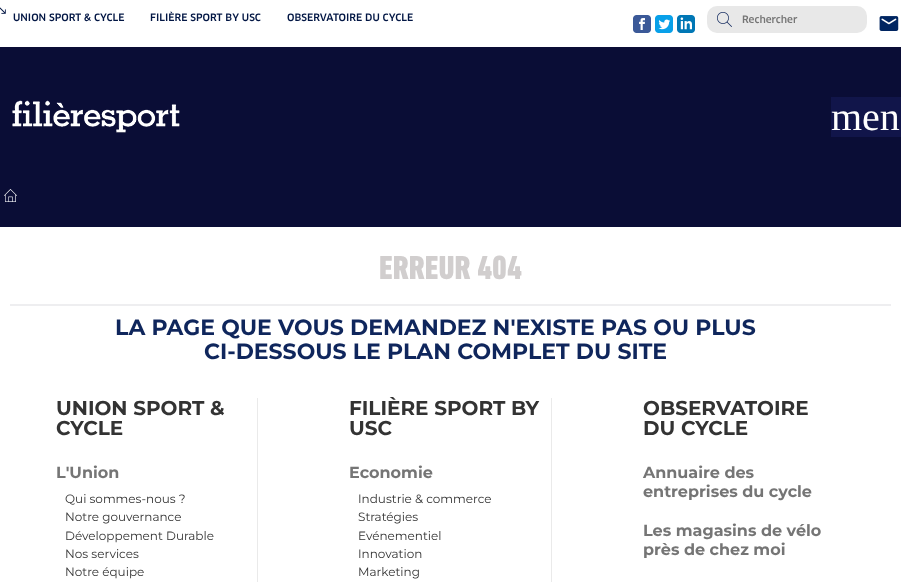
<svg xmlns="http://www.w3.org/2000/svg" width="901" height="582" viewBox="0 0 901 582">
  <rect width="100%" height="100%" fill="rgb(10,13,54)"/>
  <rect x="0" y="0" width="901" height="47" fill="rgb(255,255,255)"/>
  <image x="0" y="7" width="6" height="7" href="pic1.png"/>
  <g font-family="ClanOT" font-size="10" font-weight="500" fill="rgb(2,22,68)">
    <text x="13" y="21">UNION SPORT &amp; CYCLE</text>
    <text x="150" y="21">FILIÈRE SPORT BY USC</text>
    <text x="287" y="21">OBSERVATOIRE DU CYCLE</text>
  </g>
  <image x="633" y="15" width="18" height="18" href="pic2.png"/>
  <image x="655" y="15" width="18" height="18" href="pic3.png"/>
  <image x="677" y="15" width="18" height="18" href="pic4.png"/>
  <rect x="707" y="6" width="160" height="27" rx="10" fill="rgb(232,232,232)"/>
  <image x="717" y="12" width="15" height="15" href="pic5.png"/>
  <text x="742" y="23" font-family="ClanOT" font-size="10" font-weight="500" fill="rgb(117,117,117)">Rechercher</text>
  <image x="879" y="16" width="20" height="15" href="pic6.png"/>
  <image x="12" y="100" width="168" height="33" href="pic7.png"/>
  <rect x="831" y="97" width="70" height="40" fill="rgb(17,21,74)"/>
  <text x="831" y="130" font-family="Liberation Serif" font-size="40" fill="rgb(255,255,255)">men</text>
  <image x="4" y="189" width="13" height="13" href="pic8.png"/>
  <rect x="0" y="227" width="901" height="355" fill="rgb(255,255,255)"/>
  <text x="379" y="279" font-family="DIN Next" font-size="34" font-weight="900" fill="rgb(209,206,206)">ERREUR 404</text>
  <rect x="10" y="304" width="881" height="2" fill="rgb(238,238,240)"/>
  <g font-family="Montserrat" font-size="22" font-weight="bold" fill="rgb(15,38,92)">
    <text x="115" y="335">LA PAGE QUE VOUS DEMANDEZ N'EXISTE PAS OU PLUS</text>
    <text x="204" y="359">CI-DESSOUS LE PLAN COMPLET DU SITE</text>
  </g>
  <rect x="257" y="398" width="1" height="184" fill="rgb(234,234,234)"/>
  <g font-family="Montserrat" font-size="20" font-weight="bold" fill="rgb(51,51,51)">
    <text>
      <tspan x="56" y="415">UNION SPORT &amp;</tspan>
      <tspan x="56" y="435">CYCLE</tspan>
    </text>
  </g>
  <text x="56" y="478" font-family="Montserrat" font-size="16" font-weight="bold" fill="rgb(117,117,117)">L'Union</text>
  <g font-family="Montserrat" font-size="12" fill="rgb(51,51,51)">
    <text>
      <tspan x="65" y="503">Qui sommes-nous ?</tspan>
      <tspan x="65" y="521">Notre gouvernance</tspan>
      <tspan x="65" y="540">Développement Durable</tspan>
      <tspan x="65" y="558">Nos services</tspan>
      <tspan x="65" y="576">Notre équipe</tspan>
    </text>
  </g>
  <rect x="551" y="398" width="1" height="184" fill="rgb(234,234,234)"/>
  <g font-family="Montserrat" font-size="20" font-weight="bold" fill="rgb(51,51,51)">
    <text>
      <tspan x="349" y="415">FILIÈRE SPORT BY</tspan>
      <tspan x="349" y="435">USC</tspan>
    </text>
  </g>
  <text x="349" y="478" font-family="Montserrat" font-size="16" font-weight="bold" fill="rgb(117,117,117)">Economie</text>
  <g font-family="Montserrat" font-size="12" fill="rgb(51,51,51)">
    <text>
      <tspan x="358" y="503">Industrie &amp; commerce</tspan>
      <tspan x="358" y="521">Stratégies</tspan>
      <tspan x="358" y="540">Evénementiel</tspan>
      <tspan x="358" y="558">Innovation</tspan>
      <tspan x="358" y="576">Marketing</tspan>
    </text>
  </g>
  <g font-family="Montserrat" font-size="20" font-weight="bold" fill="rgb(51,51,51)">
    <text>
      <tspan x="643" y="415">OBSERVATOIRE</tspan>
      <tspan x="643" y="435">DU CYCLE</tspan>
    </text>
  </g>
  <g font-family="Montserrat" font-size="16" font-weight="bold" fill="rgb(117,117,117)">
    <text>
      <tspan x="643" y="478">Annuaire des</tspan>
      <tspan x="643" y="497">entreprises du cycle</tspan>
    </text>
    <text>
      <tspan x="643" y="536">Les magasins de vélo</tspan>
      <tspan x="643" y="555">près de chez moi</tspan>
    </text>
  </g>
</svg>
